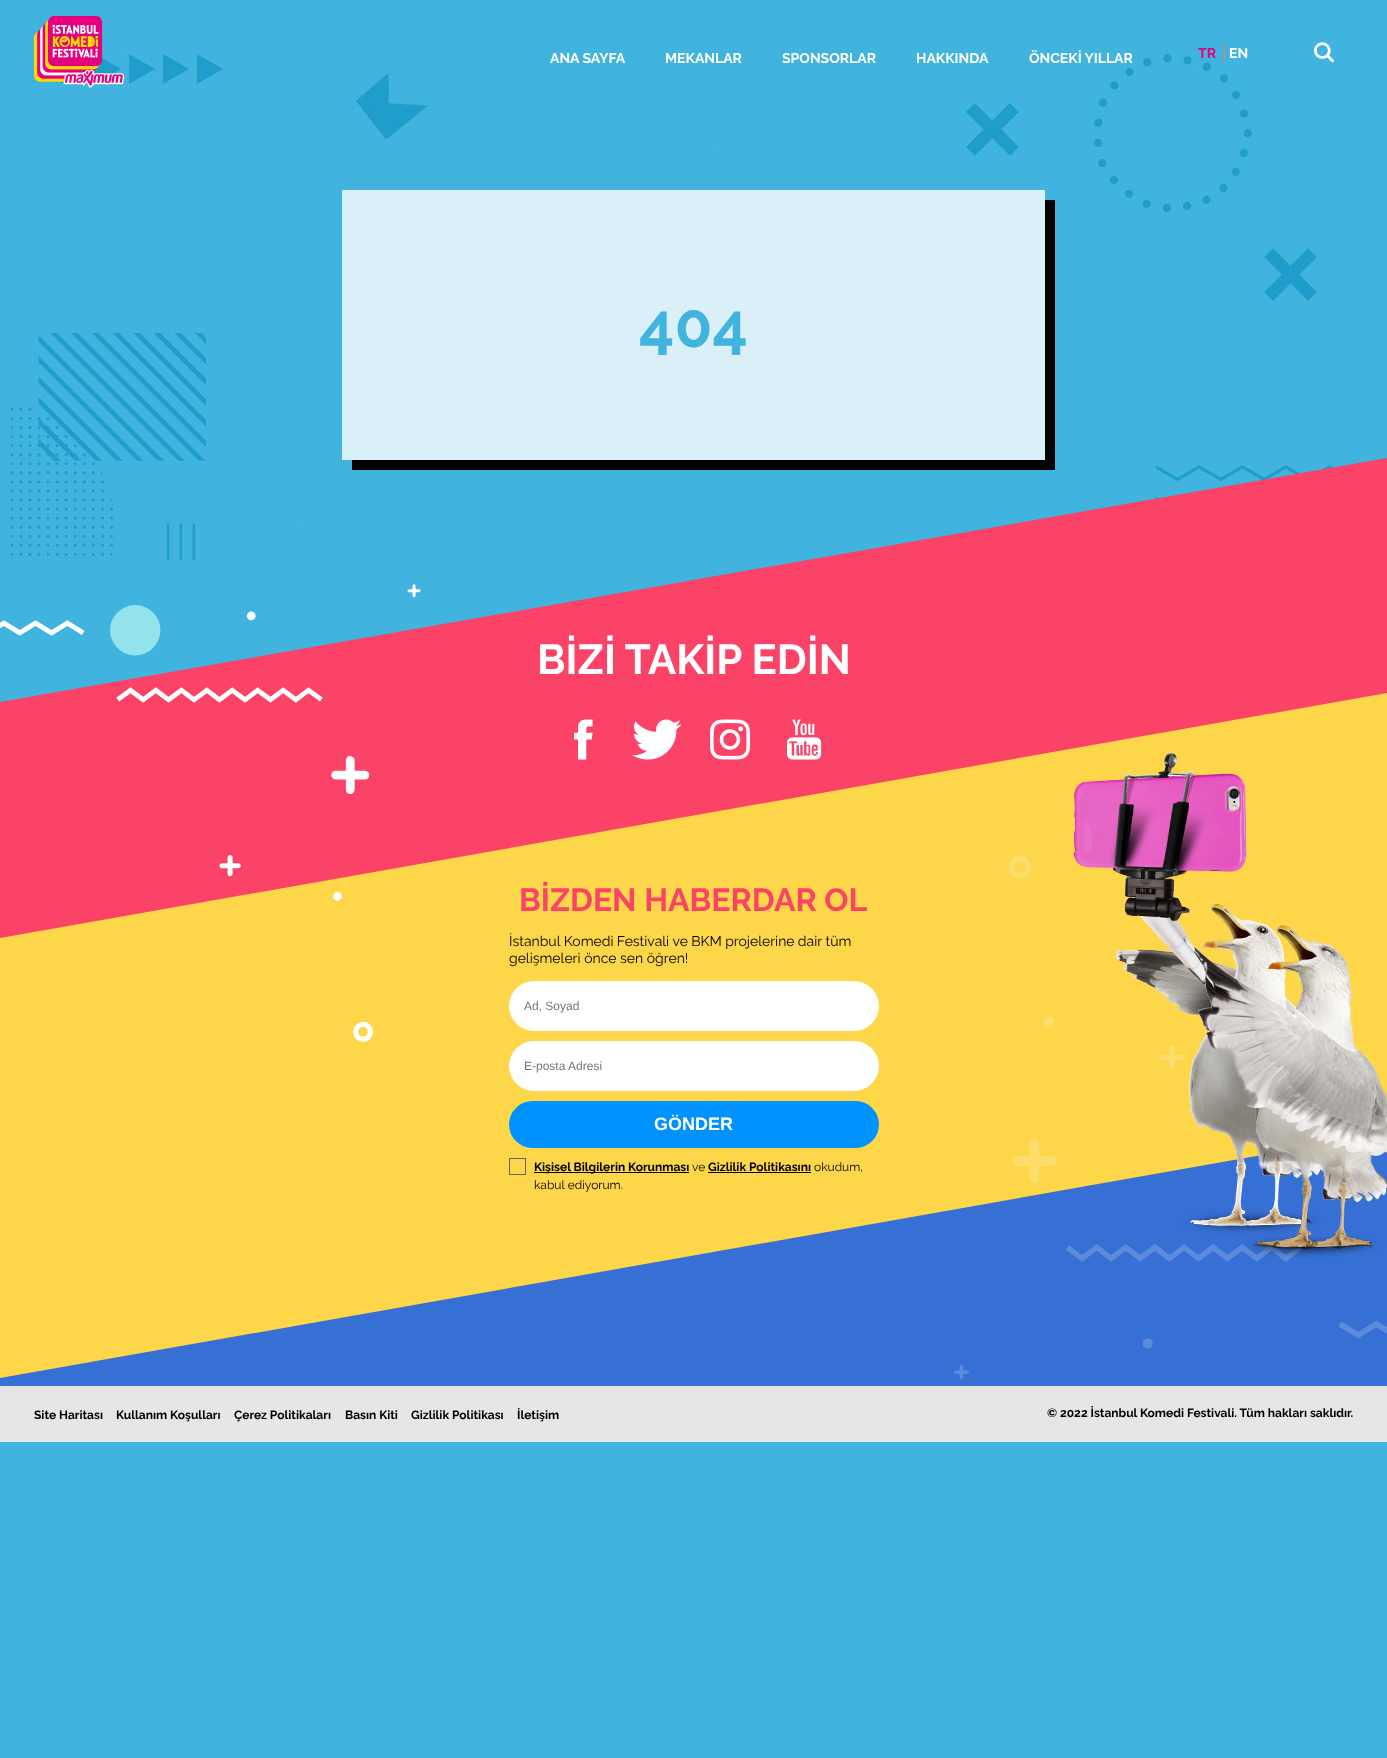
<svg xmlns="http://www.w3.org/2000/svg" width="1387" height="1758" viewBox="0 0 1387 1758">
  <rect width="100%" height="100%" fill="rgb(64,180,222)"/>
  <image x="11" y="48" width="1366" height="512" href="pic1.png"/>
  <image x="34" y="16" width="90" height="72" href="pic2.png"/>
  <g font-family="Raleway" font-size="14" font-weight="bold" fill="rgb(255,255,255)">
    <text x="550" y="63">ANA SAYFA</text>
    <text x="665" y="63">MEKANLAR</text>
    <text x="782" y="63">SPONSORLAR</text>
    <text x="916" y="63">HAKKINDA</text>
    <text x="1029" y="63">ÖNCEKİ YILLAR</text>
  </g>
  <text x="1198" y="58" font-family="Raleway" font-size="14" font-weight="bold" fill="rgb(229,0,126)">TR</text>
  <text x="1229" y="58" font-family="Raleway" font-size="14" font-weight="bold" fill="rgb(255,255,255)">EN</text>
  <rect x="1223" y="44" width="2" height="18" fill="rgb(153,153,153)"/>
  <image x="1314" y="42" width="20" height="21" href="pic3.png"/>
  <path d="M0 702L1387 458V863L0 1108Z" fill="rgb(251,66,103)"/>
  <path d="M352 460V470H1055V200H1045V460Z" fill="rgb(0,0,0)"/>
  <rect x="342" y="190" width="703" height="270" fill="rgb(217,240,249)"/>
  <text x="639" y="347" font-family="Raleway" font-size="62" font-weight="bold" fill="rgb(64,179,223)">404</text>
  <rect x="0" y="1151" width="1387" height="235" fill="rgb(55,112,212)"/>
  <path d="M0 938L1387 693V1133L0 1378Z" fill="rgb(253,214,73)"/>
  <image x="0" y="584" width="421" height="458" href="pic4.png"/>
  <text x="537" y="674" font-family="Raleway" font-size="42" font-weight="bold" fill="rgb(255,255,255)">BİZİ TAKİP EDİN</text>
  <image x="574" y="719" width="19" height="41" href="pic5.png"/>
  <image x="632" y="719" width="50" height="41" href="pic6.png"/>
  <image x="710" y="719" width="40" height="41" href="pic7.png"/>
  <image x="787" y="719" width="35" height="41" href="pic8.png"/>
  <image x="954" y="856" width="433" height="524" href="pic9.png"/>
  <text x="519" y="911" font-family="Raleway" font-size="32" font-weight="bold" fill="rgb(251,66,103)">BİZDEN HABERDAR OL</text>
  <g font-family="Raleway" font-size="14" fill="rgb(0,0,0)">
    <text>
      <tspan x="509" y="946" word-spacing="-0.25">İstanbul Komedi Festivali ve BKM projelerine dair tüm</tspan>
      <tspan x="509" y="963">gelişmeleri önce sen öğren!</tspan>
    </text>
  </g>
  <rect x="509" y="981" width="370" height="50" rx="25" fill="rgb(255,255,255)"/>
  <text x="524" y="1010" font-family="Liberation Sans" font-size="12" fill="rgb(117,117,117)">Ad, Soyad</text>
  <rect x="509" y="1041" width="370" height="50" rx="25" fill="rgb(255,255,255)"/>
  <text x="524" y="1070" font-family="Liberation Sans" font-size="12" fill="rgb(117,117,117)">E-posta Adresi</text>
  <rect x="509" y="1101" width="370" height="47" rx="23.5" fill="rgb(0,147,255)"/>
  <text x="654" y="1130" font-family="Liberation Sans" font-size="18" font-weight="bold" fill="rgb(255,255,255)">GÖNDER</text>
  <rect x="509.5" y="1158.5" width="16" height="16" fill="none" stroke="rgb(102,102,102)"/>
  <rect x="534" y="1172" width="155" height="1" fill="rgb(0,0,0)"/>
  <text x="534" y="1171" font-family="Raleway" font-size="12" font-weight="bold" fill="rgb(0,0,0)">Kişisel Bilgilerin Korunması</text>
  <text x="692" y="1171" font-family="Raleway" font-size="12" fill="rgb(0,0,0)">ve</text>
  <text x="708" y="1171" font-family="Raleway" font-size="12" font-weight="bold" fill="rgb(0,0,0)">Gizlilik Politikasını</text>
  <rect x="708" y="1172" width="103" height="1" fill="rgb(0,0,0)"/>
  <g font-family="Raleway" font-size="12" fill="rgb(0,0,0)">
    <text x="814" y="1171">okudum,</text>
    <text x="534" y="1189">kabul ediyorum.</text>
  </g>
  <image x="1073" y="752" width="314" height="506" href="pic10.png"/>
  <rect x="0" y="1386" width="1387" height="56" fill="rgb(230,230,230)"/>
  <g font-family="Raleway" font-size="12" font-weight="bold" fill="rgb(0,0,0)">
    <text x="34" y="1419">Site Haritası</text>
    <text x="116" y="1419">Kullanım Koşulları</text>
    <text x="234" y="1419">Çerez Politikaları</text>
    <text x="345" y="1419">Basın Kiti</text>
    <text x="411" y="1419">Gizlilik Politikası</text>
    <text x="517" y="1419">İletişim</text>
    <text x="1047" y="1417">© 2022 İstanbul Komedi Festivali. Tüm hakları saklıdır.</text>
  </g>
</svg>
